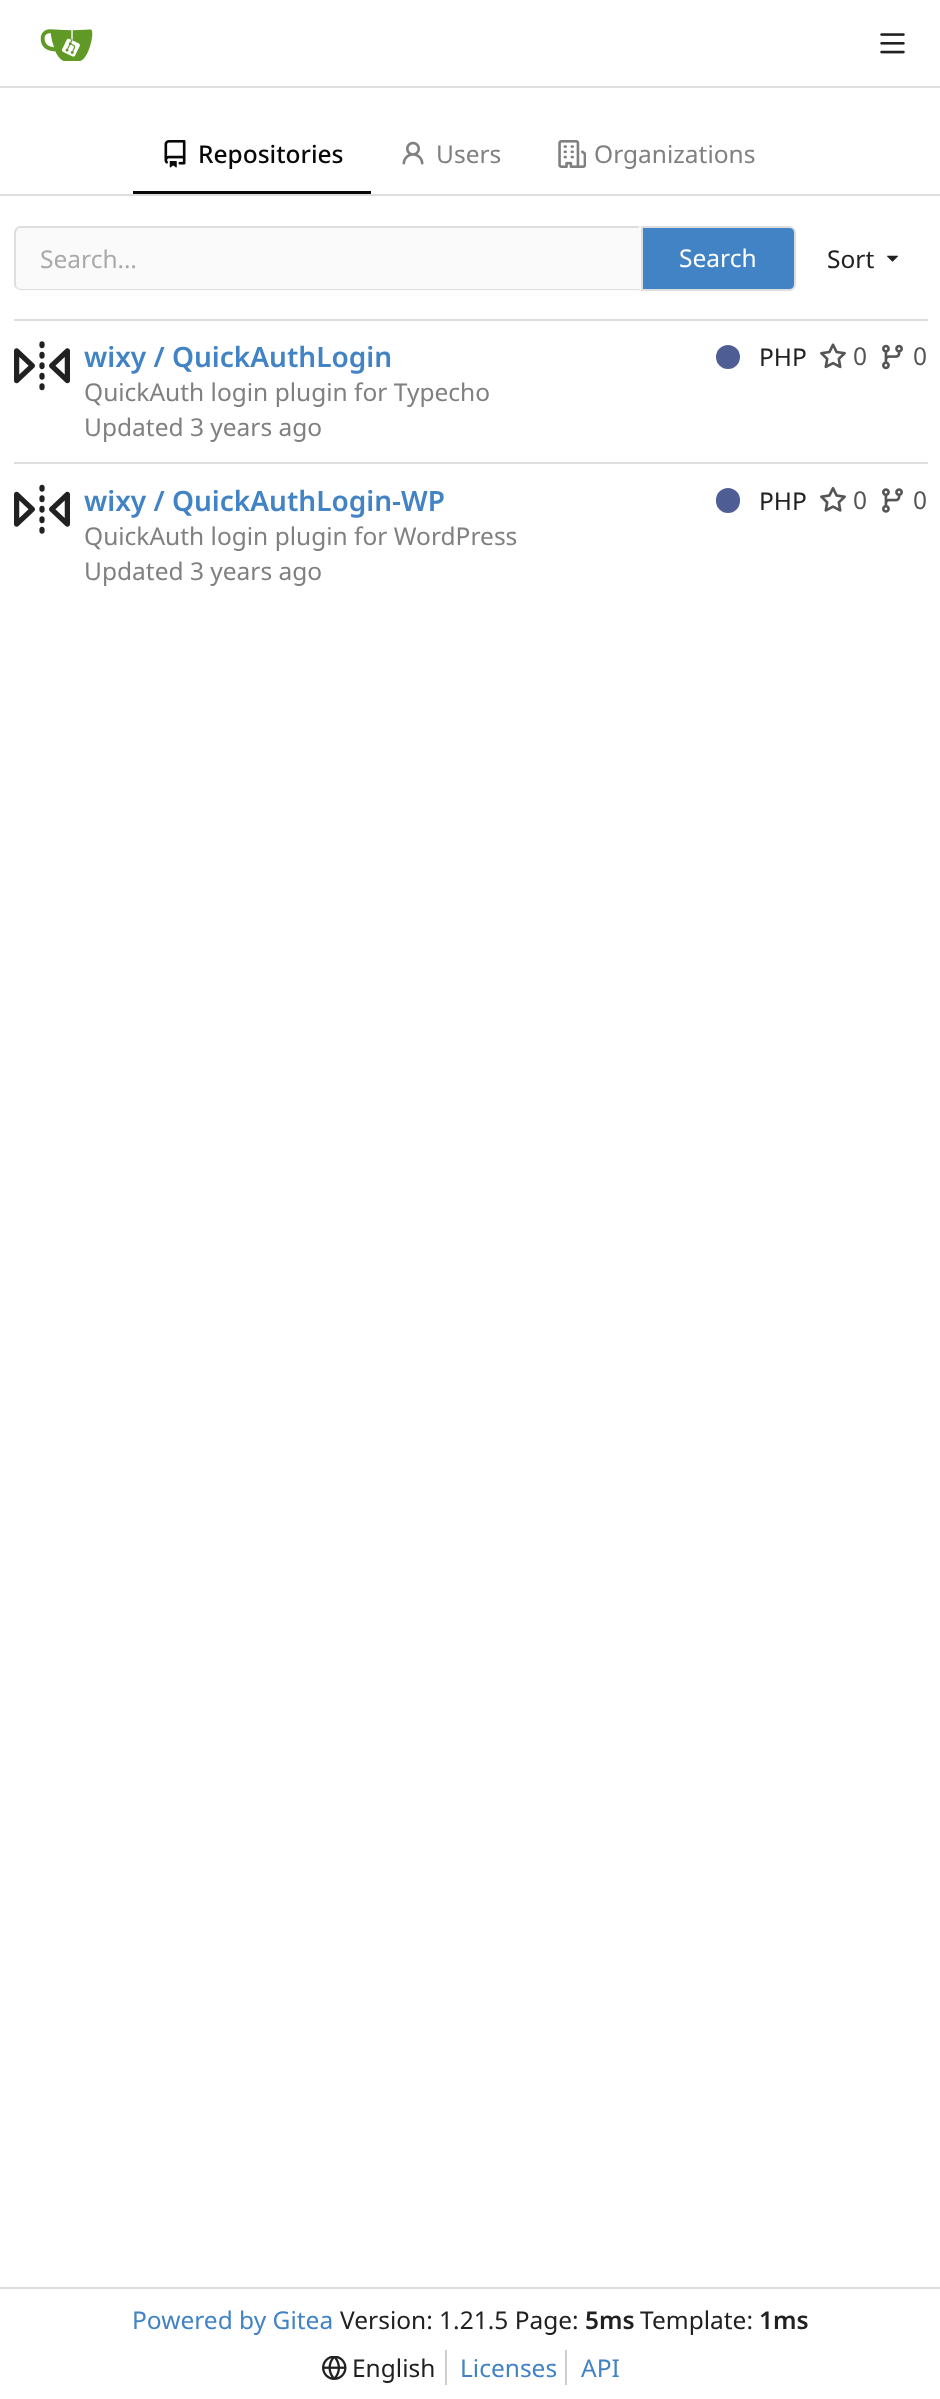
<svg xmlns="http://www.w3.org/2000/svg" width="940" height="2399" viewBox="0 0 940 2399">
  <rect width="100%" height="100%" fill="rgb(255,255,255)"/>
  <rect x="0" y="86" width="940" height="2" fill="rgb(222,222,222)"/>
  <image x="40" y="29" width="53" height="32" href="pic1.png"/>
  <image x="880" y="33" width="25" height="21" href="pic2.png"/>
  <rect x="0" y="194" width="940" height="2" fill="rgb(222,222,222)"/>
  <rect x="133" y="191" width="238" height="3" fill="rgb(8,8,8)"/>
  <image x="164" y="140" width="22" height="28" href="pic3.png"/>
  <text x="198" y="163" font-family="Noto Sans" font-size="24.5" font-weight="500" fill="rgb(8,8,8)">Repositories</text>
  <image x="402" y="141" width="22" height="24" href="pic4.png"/>
  <text x="436" y="163" font-family="Noto Sans" font-size="24.5" fill="rgb(128,128,128)">Users</text>
  <image x="558" y="140" width="28" height="28" href="pic5.png"/>
  <text x="594" y="163" font-family="Noto Sans" font-size="24.5" fill="rgb(128,128,128)">Organizations</text>
  <path d="M21 226H641V291H21C17 291 14 288 14 284V233C14 229 17 226 21 226Z" fill="rgb(250,250,250)"/>
  <path d="M21 226C19 226 17 227 16 228L18 229C18 228 20 228 21 228H638L640 226Z" fill="rgb(222,222,222)"/>
  <path d="M640 290L639 289H21C19 289 18 288 17 287L16 288L20 290Z" fill="rgb(222,222,222)"/>
  <path d="M14 233V284C14 286 15 287 16 288L17 287C16 286 16 285 16 284V233C16 231 17 230 18 229L16 228C15 229 14 231 14 233Z" fill="rgb(222,222,222)"/>
  <text x="40" y="268" font-family="Noto Sans" font-size="24.5" fill="rgb(170,170,170)">Search…</text>
  <path d="M642 227H789C792.5 227 795 229.5 795 233V284C795 287.5 792.5 290 789 290H642Z" fill="rgb(65,131,196)" stroke="rgb(222,222,222)" stroke-width="2"/>
  <text x="679" y="267" font-family="Noto Sans" font-size="24.5" fill="rgb(255,255,255)">Search</text>
  <text x="827" y="268" font-family="Noto Sans" font-size="24.5" fill="rgb(33,33,33)">Sort</text>
  <image x="887" y="255" width="11" height="7" href="pic6.png"/>
  <rect x="14" y="319" width="914" height="2" fill="rgb(222,222,222)"/>
  <image x="14" y="341" width="56" height="50" href="pic7.png"/>
  <text x="84" y="367" font-family="Noto Sans" font-size="28" font-weight="600" fill="rgb(65,131,196)">wixy / QuickAuthLogin</text>
  <circle cx="728" cy="357" r="12" fill="rgb(79,93,149)"/>
  <text x="759" y="366" font-family="Noto Sans" font-size="24.5" fill="rgb(33,33,33)">PHP</text>
  <image x="820" y="343" width="26" height="26" href="pic8.png"/>
  <text x="853" y="365" font-family="Noto Sans" font-size="24.5" fill="rgb(85,85,85)">0</text>
  <image x="882" y="344" width="21" height="26" href="pic9.png"/>
  <text x="913" y="365" font-family="Noto Sans" font-size="24.5" fill="rgb(85,85,85)">0</text>
  <g font-family="Noto Sans" font-size="24.5" fill="rgb(128,128,128)">
    <text>
      <tspan x="84" y="401">QuickAuth login plugin for Typecho</tspan>
      <tspan x="84" y="436">Updated 3 years ago</tspan>
    </text>
  </g>
  <rect x="14" y="462" width="914" height="2" fill="rgb(222,222,222)"/>
  <image x="14" y="484" width="56" height="50" href="pic10.png"/>
  <text x="84" y="511" font-family="Noto Sans" font-size="28" font-weight="600" fill="rgb(65,131,196)">wixy / QuickAuthLogin-WP</text>
  <rect x="716" y="488" width="24" height="25" rx="12" fill="rgb(79,93,149)"/>
  <text x="759" y="510" font-family="Noto Sans" font-size="24.5" fill="rgb(33,33,33)">PHP</text>
  <image x="820" y="487" width="26" height="25" href="pic11.png"/>
  <text x="853" y="509" font-family="Noto Sans" font-size="24.5" fill="rgb(85,85,85)">0</text>
  <image x="882" y="488" width="21" height="25" href="pic12.png"/>
  <text x="913" y="509" font-family="Noto Sans" font-size="24.5" fill="rgb(85,85,85)">0</text>
  <g font-family="Noto Sans" font-size="24.5" fill="rgb(128,128,128)">
    <text>
      <tspan x="84" y="545">QuickAuth login plugin for WordPress</tspan>
      <tspan x="84" y="580">Updated 3 years ago</tspan>
    </text>
  </g>
  <rect x="0" y="2287" width="940" height="2" fill="rgb(222,222,222)"/>
  <text x="132" y="2329" font-family="Noto Sans" font-size="24.5" fill="rgb(65,131,196)">Powered by Gitea</text>
  <text x="340" y="2329" font-family="Noto Sans" font-size="24.5" fill="rgb(33,33,33)">Version: 1.21.5 Page:</text>
  <text x="585" y="2329" font-family="Noto Sans" font-size="24.5" font-weight="600" fill="rgb(33,33,33)">5ms</text>
  <text x="640" y="2329" font-family="Noto Sans" font-size="24.5" fill="rgb(33,33,33)">Template:</text>
  <text x="759" y="2329" font-family="Noto Sans" font-size="24.5" font-weight="600" fill="rgb(33,33,33)">1ms</text>
  <image x="322" y="2356" width="25" height="24" href="pic13.png"/>
  <text x="352" y="2377" font-family="Noto Sans" font-size="24.5" fill="rgb(33,33,33)">English</text>
  <rect x="445" y="2350" width="2" height="35" fill="rgb(206,206,206)"/>
  <text x="460" y="2377" font-family="Noto Sans" font-size="24.5" fill="rgb(65,131,196)">Licenses</text>
  <rect x="565" y="2350" width="2" height="35" fill="rgb(206,206,206)"/>
  <text x="581" y="2377" font-family="Noto Sans" font-size="24.5" fill="rgb(65,131,196)">API</text>
</svg>
